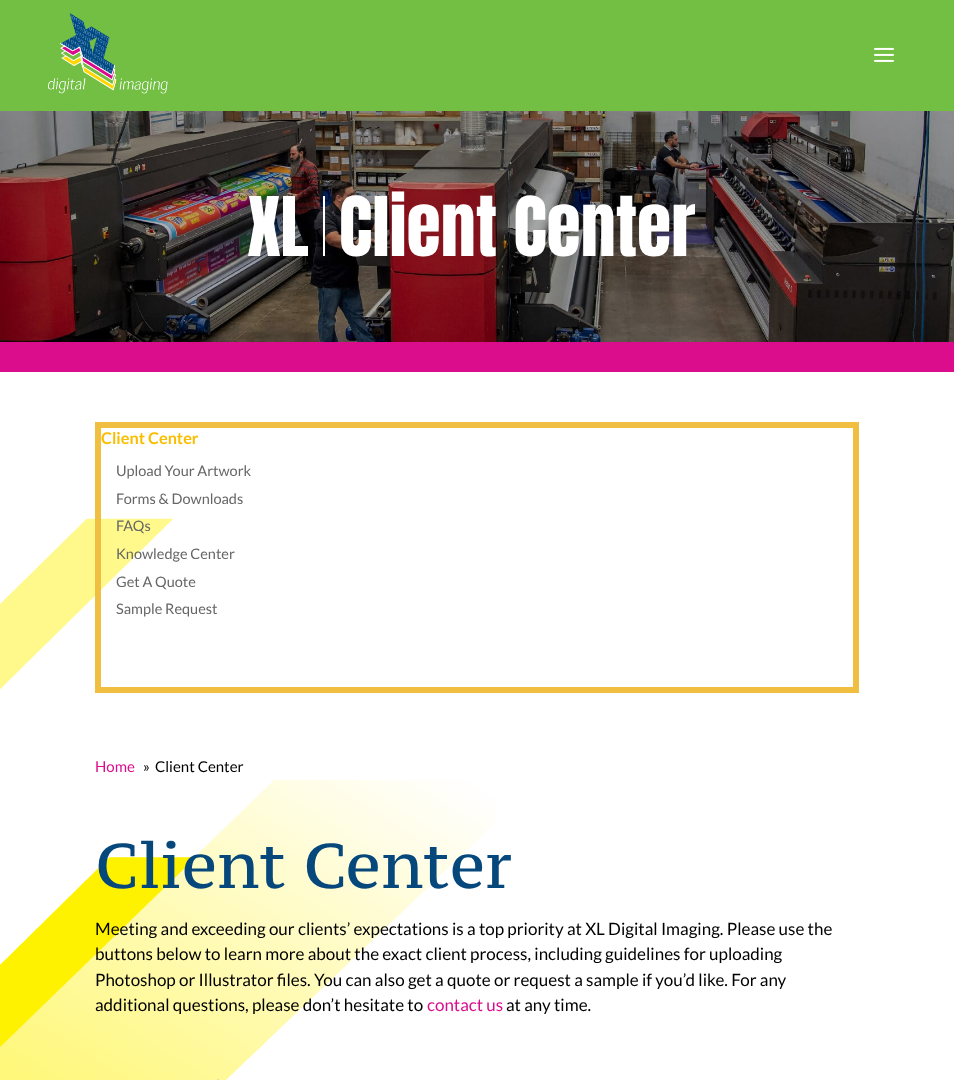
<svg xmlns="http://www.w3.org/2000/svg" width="954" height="1080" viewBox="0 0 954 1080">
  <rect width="100%" height="100%" fill="rgb(255,255,255)"/>
  <rect x="0" y="0" width="954" height="111" fill="rgb(114,191,67)"/>
  <image x="48" y="13" width="120" height="81" href="pic1.png"/>
  <image x="874" y="47" width="20" height="15" href="pic2.png"/>
  <image x="0" y="111" width="954" height="231" href="pic3.png"/>
  <path d="M248 256L254 224L249 196H261L264 217L267 196H279L274 224L280 256H268L264 233L260 256ZM283 256V196H295V246H308V256Z" fill="rgb(255,255,255)"/>
  <rect x="323" y="196" width="2" height="60" fill="rgb(255,255,255)"/>
  <text x="339" y="256" font-family="Anton" font-size="70" fill="rgb(255,255,255)">Client Center</text>
  <rect x="0" y="342" width="954" height="30" fill="rgb(219,13,140)"/>
  <image x="0" y="518" width="496" height="562" href="pic4.png"/>
  <rect x="98" y="425" width="758" height="265" fill="none" stroke="rgb(240,191,65)" stroke-width="6"/>
  <text x="101" y="444" font-family="Lato" font-size="16.25" font-weight="bold" fill="rgb(249,190,0)">Client Center</text>
  <g font-family="Lato" font-size="14.5" fill="rgb(102,102,102)">
    <text>
      <tspan x="116" y="476">Upload Your Artwork</tspan>
      <tspan x="116" y="504">Forms &amp; Downloads</tspan>
      <tspan x="116" y="531">FAQs</tspan>
      <tspan x="116" y="559">Knowledge Center</tspan>
      <tspan x="116" y="587">Get A Quote</tspan>
      <tspan x="116" y="614">Sample Request</tspan>
    </text>
  </g>
  <text x="95" y="772" font-family="Lato" font-size="15" fill="rgb(219,13,140)">Home</text>
  <g font-family="Lato" font-size="15" fill="rgb(0,0,0)">
    <text x="143" y="772">»</text>
    <text x="155" y="772">Client Center</text>
  </g>
  <text x="95" y="888" font-family="PT Serif Caption" font-size="63" fill="rgb(6,72,124)">Client Center</text>
  <g font-family="Lato" font-size="17" fill="rgb(0,0,0)">
    <text>
      <tspan x="95" y="935">Meeting and exceeding our clients’ expectations is a top priority at XL Digital Imaging. Please use the</tspan>
      <tspan x="95" y="960">buttons below to learn more about the exact client process, including guidelines for uploading</tspan>
      <tspan x="95" y="986">Photoshop or Illustrator files. You can also get a quote or request a sample if you’d like. For any</tspan>
      <tspan x="95" y="1011">additional questions, please don’t hesitate to</tspan>
    </text>
  </g>
  <text x="427" y="1011" font-family="Lato" font-size="17" fill="rgb(219,13,140)">contact us</text>
  <text x="506" y="1011" font-family="Lato" font-size="17" fill="rgb(0,0,0)">at any time.</text>
  <image x="217" y="1079" width="2" height="1" href="pic5.png"/>
</svg>
